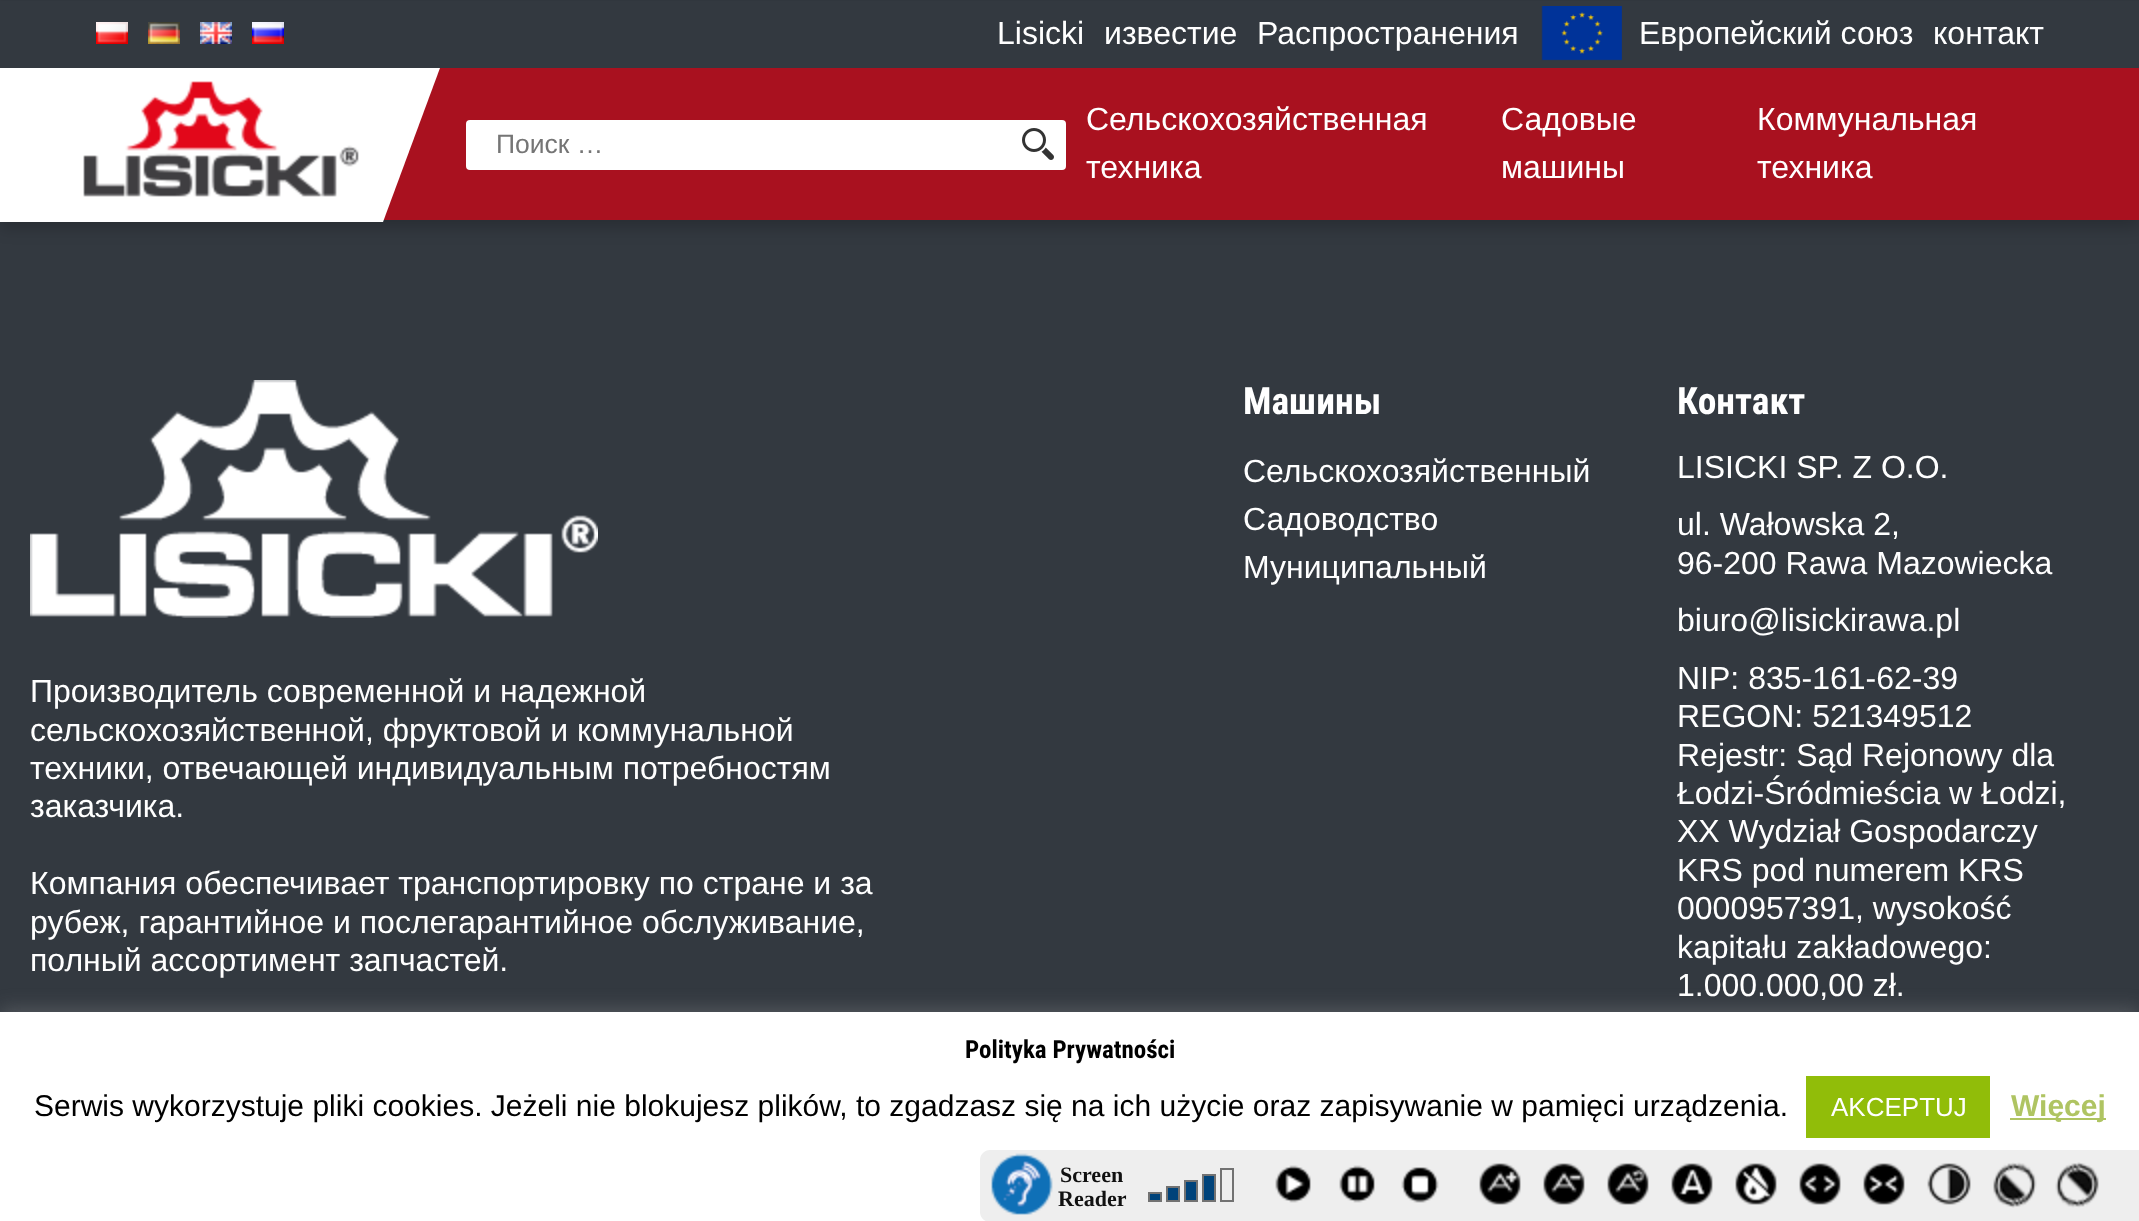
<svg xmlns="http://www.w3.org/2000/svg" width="2139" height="1221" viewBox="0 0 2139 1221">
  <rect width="100%" height="100%" fill="rgb(51,57,64)"/>
  <rect x="0" y="8" width="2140" height="220" fill="rgba(0,0,0,0.2)" filter="blur(8px)"/>
  <rect x="0" y="1" width="2139" height="67" fill="rgb(51,57,64)"/>
  <image x="96" y="22" width="32" height="22" href="pic1.png"/>
  <image x="148" y="22" width="32" height="22" href="pic2.png"/>
  <image x="200" y="22" width="32" height="22" href="pic3.png"/>
  <image x="252" y="22" width="32" height="22" href="pic4.png"/>
  <g font-family="Liberation Sans" font-size="32" fill="rgb(255,255,255)">
    <text x="997" y="44">Lisicki</text>
    <text x="1104" y="44">известие</text>
    <text x="1257" y="44">Распространения</text>
  </g>
  <image x="1541" y="6" width="81" height="55" href="pic5.png"/>
  <g font-family="Liberation Sans" font-size="32" fill="rgb(255,255,255)">
    <text x="1639" y="44">Европейский союз</text>
    <text x="1933" y="44">контакт</text>
  </g>
  <rect x="383" y="68" width="1756" height="152" fill="rgb(169,17,31)"/>
  <path d="M0 68V222H383L440 68Z" fill="rgb(255,255,255)"/>
  <image x="83" y="81" width="276" height="116" href="pic6.png"/>
  <rect x="466" y="120" width="600" height="50" rx="4" fill="rgb(255,255,255)"/>
  <text x="496" y="153" font-family="Liberation Sans" font-size="26.5" fill="rgb(117,117,117)">Поиск …</text>
  <image x="1022" y="128" width="32" height="32" href="pic7.png"/>
  <g font-family="Liberation Sans" font-size="32" fill="rgb(255,255,255)">
    <text>
      <tspan x="1086" y="130">Сельскохозяйственная</tspan>
      <tspan x="1086" y="178">техника</tspan>
    </text>
    <text>
      <tspan x="1501" y="130">Садовые</tspan>
      <tspan x="1501" y="178">машины</tspan>
    </text>
    <text>
      <tspan x="1757" y="130">Коммунальная</tspan>
      <tspan x="1757" y="178">техника</tspan>
    </text>
  </g>
  <image x="30" y="380" width="568" height="238" href="pic8.png"/>
  <g font-family="Liberation Sans" font-size="32" fill="rgb(255,255,255)">
    <text>
      <tspan x="30" y="702">Производитель современной и надежной</tspan>
      <tspan x="30" y="741">сельскохозяйственной, фруктовой и коммунальной</tspan>
      <tspan x="30" y="779">техники, отвечающей индивидуальным потребностям</tspan>
      <tspan x="30" y="817">заказчика.</tspan>
    </text>
    <text>
      <tspan x="30" y="894">Компания обеспечивает транспортировку по стране и за</tspan>
      <tspan x="30" y="933">рубеж, гарантийное и послегарантийное обслуживание,</tspan>
      <tspan x="30" y="971">полный ассортимент запчастей.</tspan>
    </text>
  </g>
  <text x="1243" y="414" font-family="Roboto Condensed" font-size="37.5" font-weight="bold" fill="rgb(255,255,255)">Машины</text>
  <g font-family="Liberation Sans" font-size="32" fill="rgb(255,255,255)">
    <text>
      <tspan x="1243" y="482">Сельскохозяйственный</tspan>
      <tspan x="1243" y="530">Садоводство</tspan>
      <tspan x="1243" y="578">Муниципальный</tspan>
    </text>
  </g>
  <text x="1677" y="414" font-family="Roboto Condensed" font-size="37.5" font-weight="bold" fill="rgb(255,255,255)">Контакт</text>
  <g font-family="Liberation Sans" font-size="32" fill="rgb(255,255,255)">
    <text>
      <tspan x="1677" y="478">LISICKI SP. Z O.O.</tspan>
      <tspan x="1677" y="535">ul. Wałowska 2,</tspan>
      <tspan x="1677" y="574">96-200 Rawa Mazowiecka</tspan>
      <tspan x="1677" y="631">biuro@lisickirawa.pl</tspan>
      <tspan x="1677" y="689">NIP: 835-161-62-39</tspan>
      <tspan x="1677" y="727">REGON: 521349512</tspan>
      <tspan x="1677" y="766">Rejestr: Sąd Rejonowy dla</tspan>
      <tspan x="1677" y="804">Łodzi-Śródmieścia w Łodzi,</tspan>
      <tspan x="1677" y="842">XX Wydział Gospodarczy</tspan>
      <tspan x="1677" y="881">KRS pod numerem KRS</tspan>
      <tspan x="1677" y="919">0000957391, wysokość</tspan>
      <tspan x="1677" y="958">kapitału zakładowego:</tspan>
      <tspan x="1677" y="996">1.000.000,00 zł.</tspan>
    </text>
  </g>
  <rect x="0" y="1010" width="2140" height="210" fill="rgba(172,171,171,0.3)" filter="blur(10px)"/>
  <rect x="0" y="1012" width="2139" height="209" fill="rgb(255,255,255)"/>
  <text x="965" y="1058" font-family="Roboto Condensed" font-size="25" font-weight="bold" fill="rgb(0,0,0)">Polityka Prywatności</text>
  <text x="34" y="1116" font-family="Liberation Sans" font-size="30" fill="rgb(0,0,0)">Serwis wykorzystuje pliki cookies. Jeżeli nie blokujesz plików, to zgadzasz się na ich użycie oraz zapisywanie w pamięci urządzenia.</text>
  <rect x="1806" y="1076" width="184" height="62" fill="rgb(145,189,9)"/>
  <text x="1831" y="1116" font-family="Liberation Sans" font-size="26" fill="rgb(255,255,255)">AKCEPTUJ</text>
  <rect x="2010" y="1118" width="96" height="2" fill="rgb(175,196,98)"/>
  <text x="2011" y="1116" font-family="Liberation Sans" font-size="30" font-weight="bold" fill="rgb(175,196,98)">Więcej</text>
  <path d="M990 1150H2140V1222H990C984.5 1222 980 1217.5 980 1212V1160C980 1154.5 984.5 1150 990 1150Z" fill="rgb(238,238,238)"/>
  <image x="991" y="1153" width="62" height="62" href="pic9.png"/>
  <g font-family="Liberation Serif" font-size="22" font-weight="bold" fill="rgb(17,17,17)">
    <text x="1060" y="1182">Screen</text>
    <text x="1058" y="1206">Reader</text>
  </g>
  <rect x="1149" y="1193" width="12" height="8" fill="rgb(0,67,122)" stroke="rgb(114,114,114)" stroke-width="2"/>
  <rect x="1167" y="1187" width="12" height="14" fill="rgb(0,67,122)" stroke="rgb(114,114,114)" stroke-width="2"/>
  <rect x="1185" y="1181" width="12" height="20" fill="rgb(0,67,122)" stroke="rgb(114,114,114)" stroke-width="2"/>
  <rect x="1203" y="1175" width="12" height="26" fill="rgb(0,67,122)" stroke="rgb(114,114,114)" stroke-width="2"/>
  <rect x="1221" y="1169" width="12" height="32" fill="none" stroke="rgb(114,114,114)" stroke-width="2"/>
  <image x="1275" y="1165" width="36" height="38" href="pic10.png"/>
  <image x="1339" y="1165" width="36" height="38" href="pic11.png"/>
  <image x="1401" y="1167" width="38" height="36" href="pic12.png"/>
  <image x="1479" y="1163" width="42" height="42" href="pic13.png"/>
  <image x="1543" y="1163" width="42" height="42" href="pic14.png"/>
  <image x="1607" y="1163" width="42" height="42" href="pic15.png"/>
  <image x="1671" y="1163" width="42" height="42" href="pic16.png"/>
  <image x="1735" y="1163" width="42" height="42" href="pic17.png"/>
  <image x="1799" y="1163" width="42" height="42" href="pic18.png"/>
  <image x="1863" y="1163" width="42" height="42" href="pic19.png"/>
  <image x="1927" y="1163" width="44" height="42" href="pic20.png"/>
  <image x="1993" y="1162" width="44" height="46" href="pic21.png"/>
  <image x="2055" y="1162" width="44" height="46" href="pic22.png"/>
</svg>
